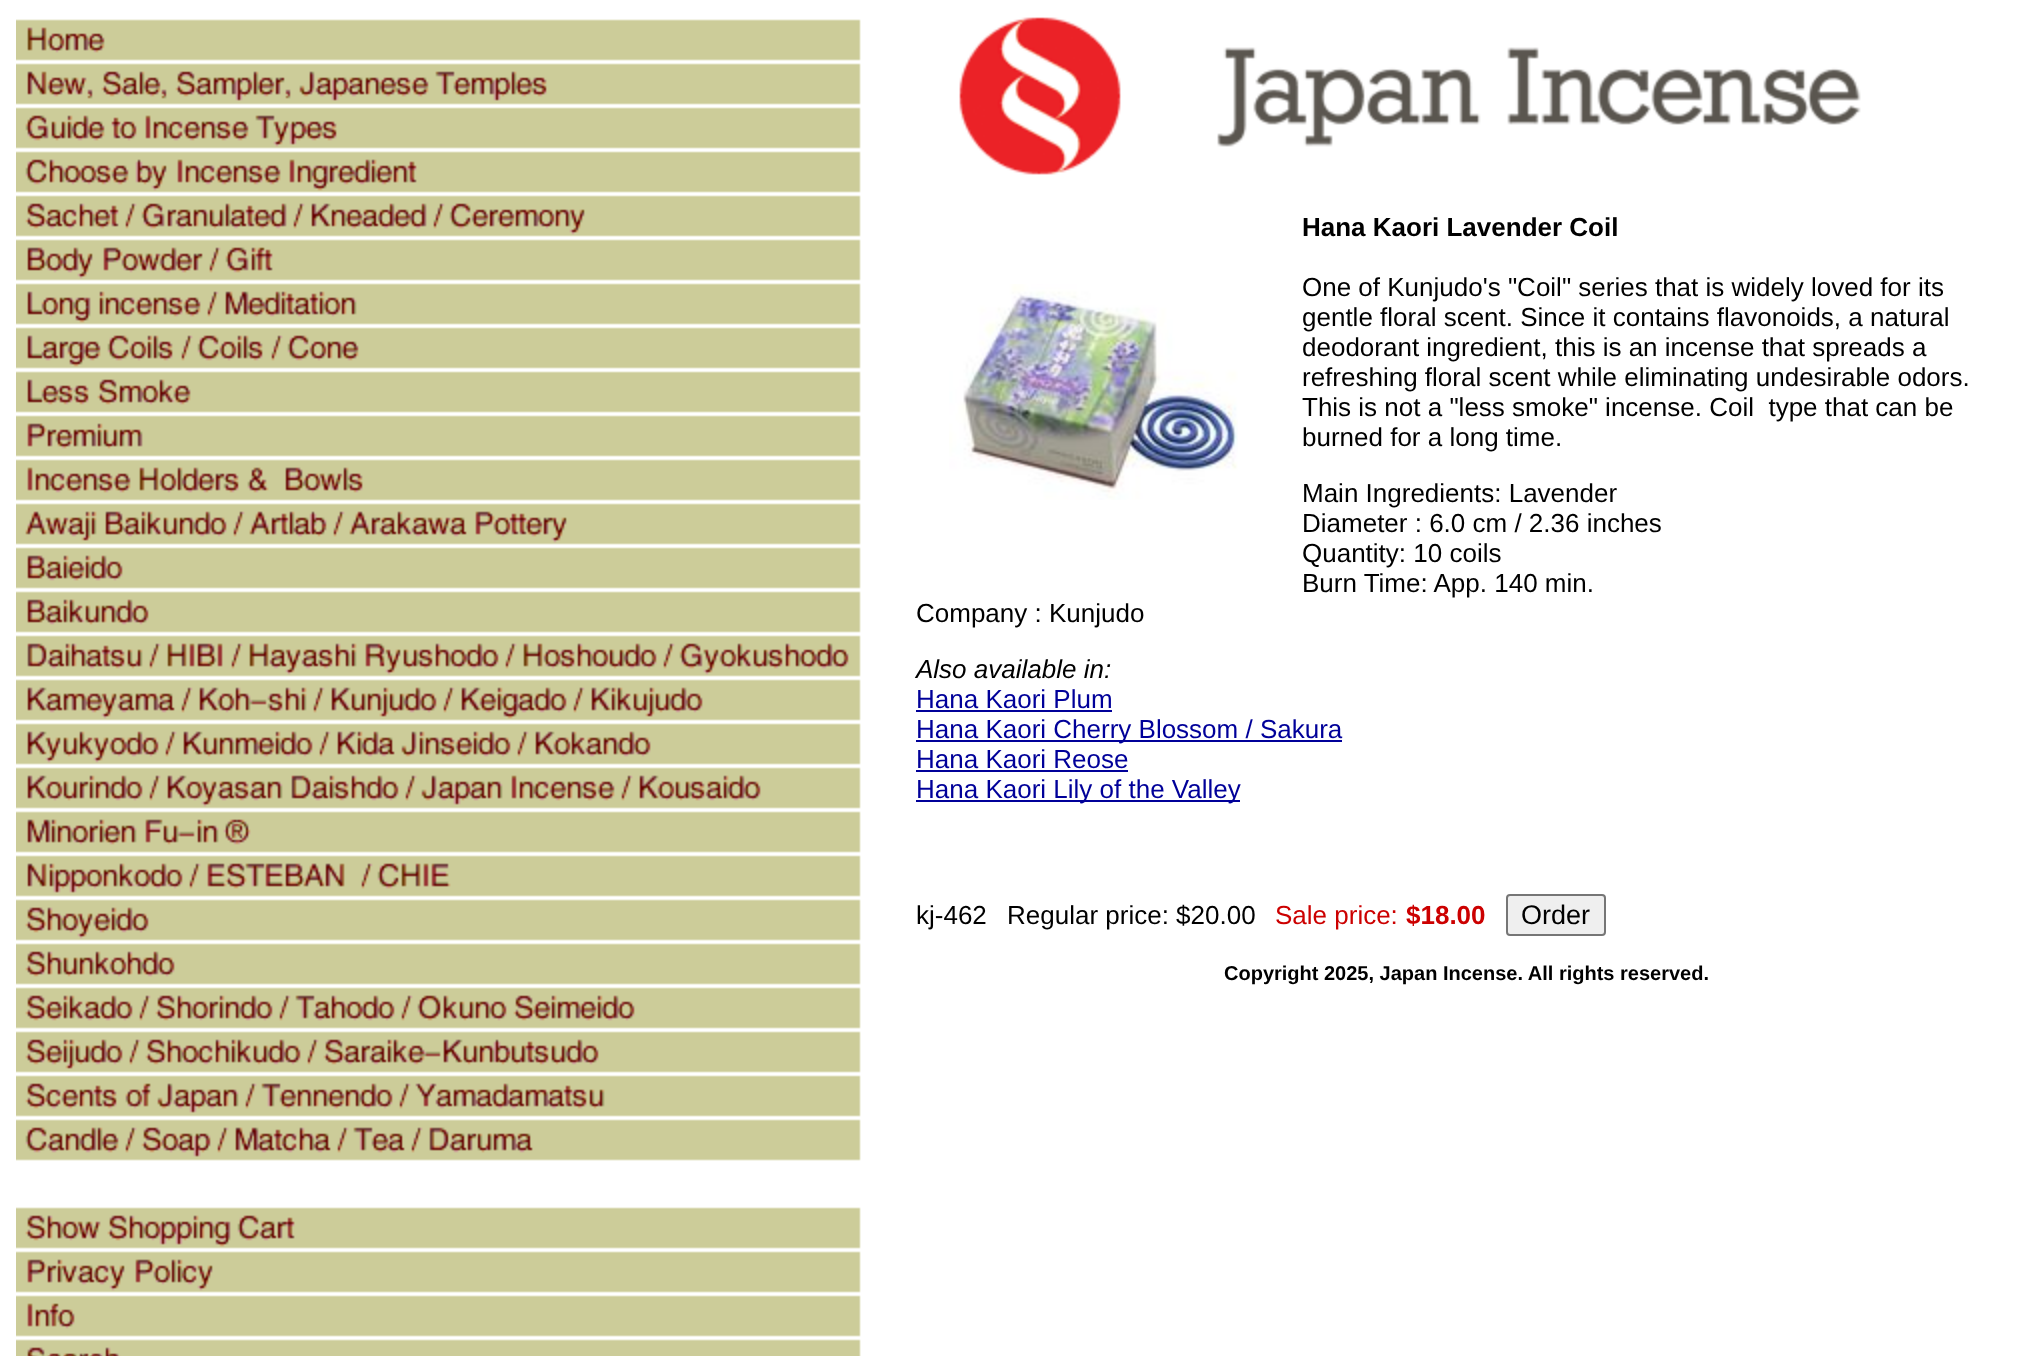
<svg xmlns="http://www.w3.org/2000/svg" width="2034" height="1356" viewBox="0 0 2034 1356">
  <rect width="100%" height="100%" fill="rgb(255,255,255)"/>
  <image x="16" y="19" width="845" height="1337" href="pic1.png"/>
  <image x="959" y="17" width="902" height="158" href="pic2.png"/>
  <text x="1302" y="236" font-family="Liberation Sans" font-size="26" font-weight="bold" fill="rgb(0,0,0)">Hana Kaori Lavender Coil</text>
  <g font-family="Liberation Sans" font-size="26" fill="rgb(0,0,0)">
    <text xml:space="preserve"><tspan x="1302" y="296">One of Kunjudo's "Coil" series that is widely loved for its</tspan><tspan x="1302" y="326">gentle floral scent. Since it contains flavonoids, a natural</tspan><tspan x="1302" y="356">deodorant ingredient, this is an incense that spreads a</tspan><tspan x="1302" y="386">refreshing floral scent while eliminating undesirable odors.</tspan><tspan x="1302" y="416">This is not a "less smoke" incense. Coil  type that can be</tspan><tspan x="1302" y="446">burned for a long time.</tspan></text>
    <text>
      <tspan x="1302" y="502">Main Ingredients: Lavender</tspan>
      <tspan x="1302" y="532">Diameter : 6.0 cm / 2.36 inches</tspan>
      <tspan x="1302" y="562">Quantity: 10 coils</tspan>
      <tspan x="1302" y="592">Burn Time: App. 140 min.</tspan>
    </text>
    <text x="916" y="622">Company : Kunjudo</text>
  </g>
  <text x="916" y="678" font-family="Liberation Sans" font-size="26" font-style="italic" fill="rgb(0,0,0)">Also available in:</text>
  <text x="916" y="708" font-family="Liberation Sans" font-size="26" fill="rgb(0,0,153)">Hana Kaori Plum</text>
  <rect x="916" y="710" width="196" height="2" fill="rgb(0,0,153)"/>
  <rect x="916" y="740" width="426" height="2" fill="rgb(0,0,153)"/>
  <g font-family="Liberation Sans" font-size="26" fill="rgb(0,0,153)">
    <text>
      <tspan x="916" y="738">Hana Kaori Cherry Blossom / Sakura</tspan>
      <tspan x="916" y="768">Hana Kaori Reose</tspan>
    </text>
  </g>
  <rect x="916" y="770" width="212" height="2" fill="rgb(0,0,153)"/>
  <rect x="916" y="800" width="324" height="2" fill="rgb(0,0,153)"/>
  <text x="916" y="798" font-family="Liberation Sans" font-size="26" fill="rgb(0,0,153)">Hana Kaori Lily of the Valley</text>
  <g font-family="Liberation Sans" font-size="26" fill="rgb(0,0,0)">
    <text x="916" y="924">kj-462</text>
    <text x="1007" y="924">Regular price: $20.00</text>
  </g>
  <text x="1275" y="924" font-family="Liberation Sans" font-size="26" fill="rgb(204,0,0)">Sale price:</text>
  <text x="1406" y="924" font-family="Liberation Sans" font-size="26" font-weight="bold" fill="rgb(204,0,0)">$18.00</text>
  <rect x="1507" y="895" width="98" height="40" rx="3" fill="rgb(239,239,239)" stroke="rgb(118,118,118)" stroke-width="2"/>
  <text x="1521" y="924" font-family="Liberation Sans" font-size="27" fill="rgb(0,0,0)">Order</text>
  <image x="949" y="284" width="289" height="216" href="pic3.png"/>
  <text x="1224" y="980" font-family="Liberation Sans" font-size="20" font-weight="bold" fill="rgb(0,0,0)">Copyright 2025, Japan Incense. All rights reserved.</text>
</svg>
